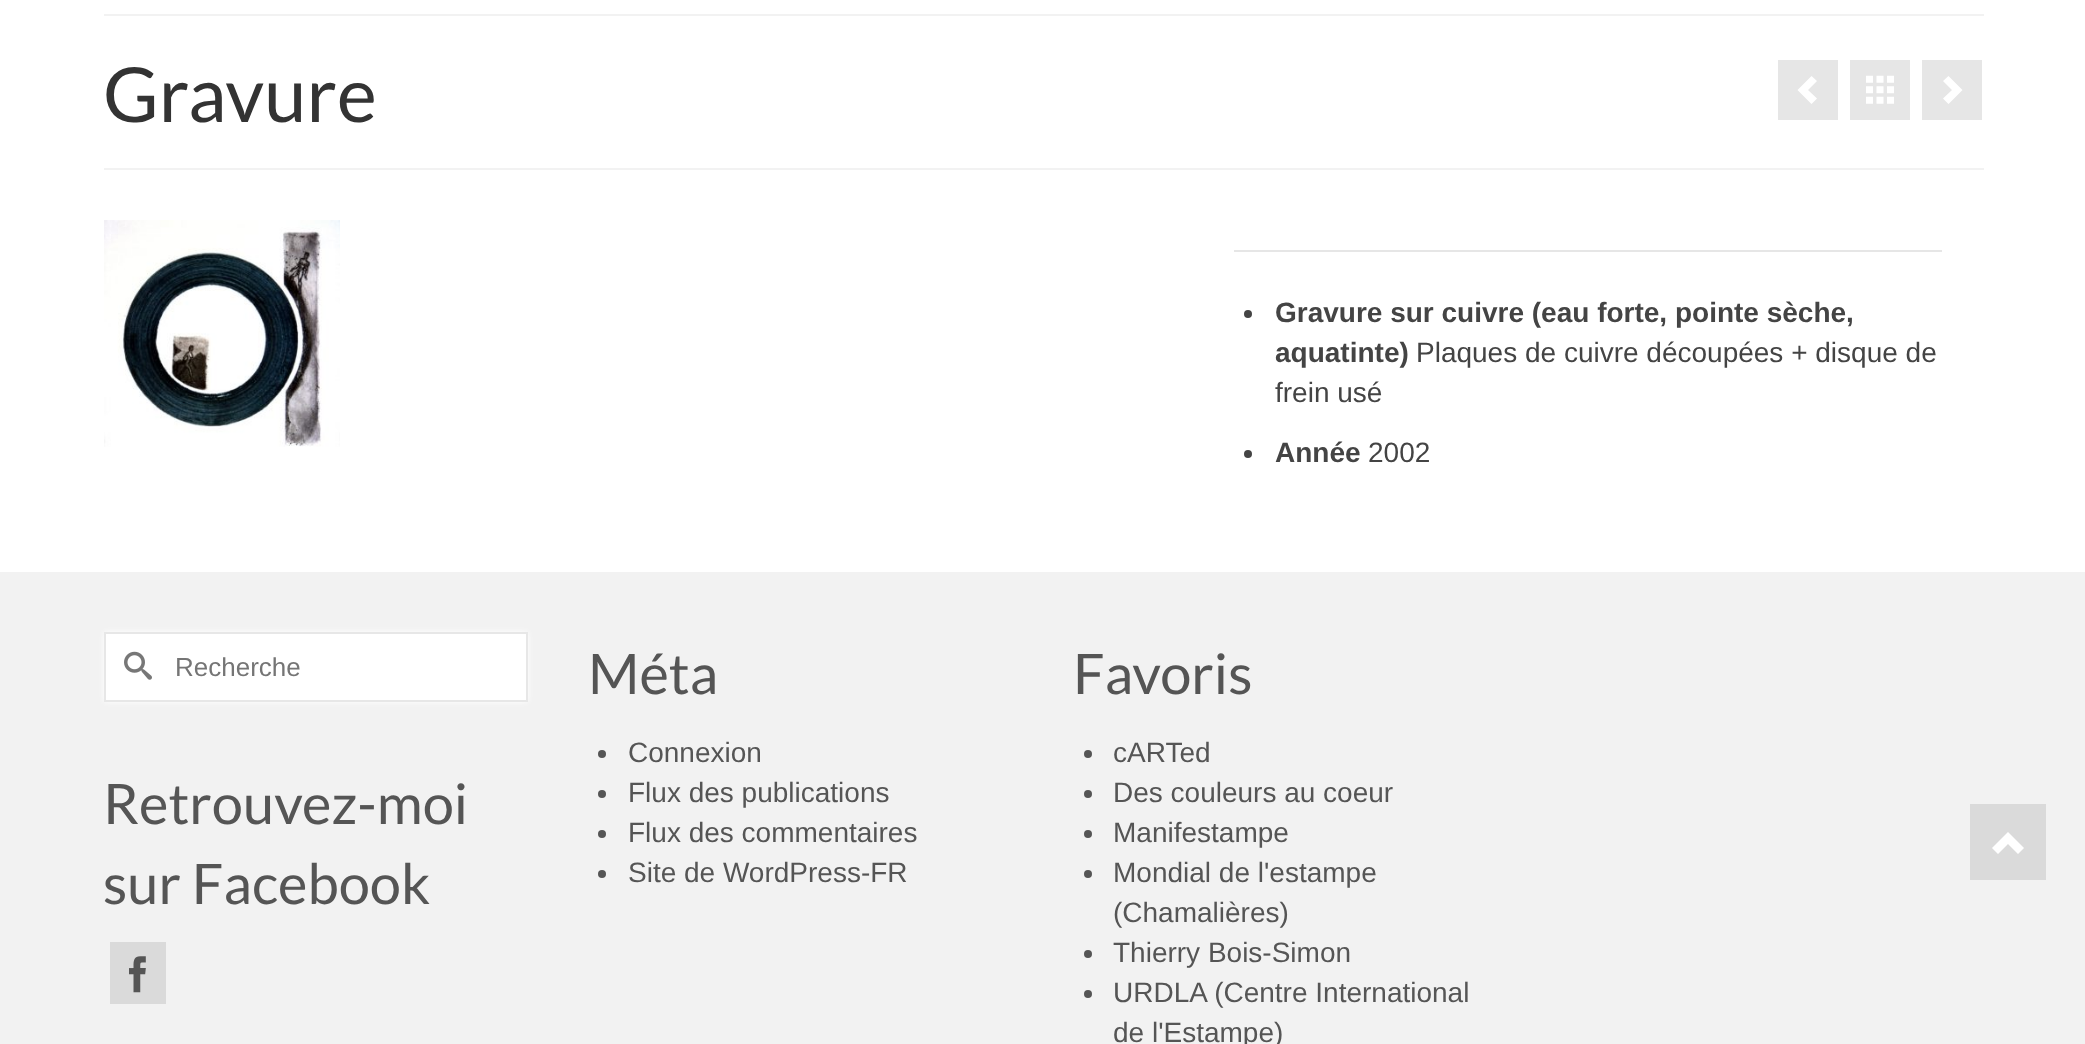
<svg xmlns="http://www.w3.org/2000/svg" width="2085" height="1044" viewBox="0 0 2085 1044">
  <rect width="100%" height="100%" fill="rgb(255,255,255)"/>
  <rect x="104" y="14" width="1880" height="2" fill="rgb(242,242,242)"/>
  <rect x="104" y="168" width="1880" height="2" fill="rgb(242,242,242)"/>
  <text x="103" y="122" font-family="Lato" font-size="76" fill="rgb(51,51,51)">Gravure</text>
  <rect x="1778" y="60" width="60" height="60" fill="rgb(230,230,230)"/>
  <rect x="1850" y="60" width="60" height="60" fill="rgb(230,230,230)"/>
  <rect x="1922" y="60" width="60" height="60" fill="rgb(230,230,230)"/>
  <path d="M1811.5 104L1817 98.5L1808 90L1817 81L1811.5 76L1797.5 90Z" fill="rgb(255,255,255)"/>
  <image x="1866" y="75" width="28" height="29" href="pic1.png"/>
  <path d="M1948.5 76L1943 81L1952 90L1943 98.5L1948.5 104L1962.5 90Z" fill="rgb(255,255,255)"/>
  <image x="104" y="220" width="236" height="227" href="pic2.png"/>
  <rect x="1234" y="250" width="708" height="2" fill="rgb(230,230,230)"/>
  <circle cx="1248" cy="314" r="4" fill="rgb(68,68,68)"/>
  <g font-family="Liberation Sans" font-size="28" font-weight="bold" fill="rgb(68,68,68)">
    <text>
      <tspan x="1275" y="322">Gravure sur cuivre (eau forte, pointe sèche,</tspan>
      <tspan x="1275" y="362">aquatinte)</tspan>
    </text>
  </g>
  <g font-family="Liberation Sans" font-size="28" fill="rgb(68,68,68)">
    <text x="1416" y="362">Plaques de cuivre découpées + disque de</text>
    <text x="1275" y="402">frein usé</text>
  </g>
  <circle cx="1248" cy="454" r="4" fill="rgb(68,68,68)"/>
  <text x="1275" y="462" font-family="Liberation Sans" font-size="28" font-weight="bold" fill="rgb(68,68,68)">Année</text>
  <text x="1368" y="462" font-family="Liberation Sans" font-size="28" fill="rgb(68,68,68)">2002</text>
  <rect x="0" y="572" width="2085" height="472" fill="rgb(242,242,242)"/>
  <rect x="104" y="632" width="424" height="70" fill="rgb(255,255,255)" filter="blur(3px)"/>
  <rect x="105" y="633" width="422" height="68" fill="rgb(255,255,255)" stroke="rgb(231,231,231)" stroke-width="2"/>
  <image x="124" y="651" width="28" height="29" href="pic3.png"/>
  <text x="175" y="676" font-family="Liberation Sans" font-size="26" fill="rgb(117,117,117)">Recherche</text>
  <g font-family="Lato" font-size="56" fill="rgb(85,85,85)">
    <text>
      <tspan x="103" y="824">Retrouvez-moi</tspan>
      <tspan x="103" y="904">sur Facebook</tspan>
    </text>
  </g>
  <rect x="110" y="942" width="56" height="62" fill="rgb(218,218,218)"/>
  <image x="129" y="956" width="17" height="37" href="pic4.png"/>
  <text x="588" y="694" font-family="Lato" font-size="56" fill="rgb(85,85,85)">Méta</text>
  <circle cx="602" cy="754" r="4" fill="rgb(85,85,85)"/>
  <text x="628" y="762" font-family="Liberation Sans" font-size="28" fill="rgb(85,85,85)">Connexion</text>
  <circle cx="602" cy="794" r="4" fill="rgb(85,85,85)"/>
  <text x="628" y="802" font-family="Liberation Sans" font-size="28" fill="rgb(85,85,85)">Flux des publications</text>
  <circle cx="602" cy="834" r="4" fill="rgb(85,85,85)"/>
  <text x="628" y="842" font-family="Liberation Sans" font-size="28" fill="rgb(85,85,85)">Flux des commentaires</text>
  <circle cx="602" cy="874" r="4" fill="rgb(85,85,85)"/>
  <text x="628" y="882" font-family="Liberation Sans" font-size="28" fill="rgb(85,85,85)">Site de WordPress-FR</text>
  <text x="1073" y="694" font-family="Lato" font-size="56" fill="rgb(85,85,85)">Favoris</text>
  <circle cx="1088" cy="754" r="4" fill="rgb(85,85,85)"/>
  <text x="1113" y="762" font-family="Liberation Sans" font-size="28" fill="rgb(85,85,85)">cARTed</text>
  <circle cx="1088" cy="794" r="4" fill="rgb(85,85,85)"/>
  <text x="1113" y="802" font-family="Liberation Sans" font-size="28" fill="rgb(85,85,85)">Des couleurs au coeur</text>
  <circle cx="1088" cy="834" r="4" fill="rgb(85,85,85)"/>
  <text x="1113" y="842" font-family="Liberation Sans" font-size="28" fill="rgb(85,85,85)">Manifestampe</text>
  <circle cx="1088" cy="874" r="4" fill="rgb(85,85,85)"/>
  <g font-family="Liberation Sans" font-size="28" fill="rgb(85,85,85)">
    <text>
      <tspan x="1113" y="882">Mondial de l'estampe</tspan>
      <tspan x="1113" y="922">(Chamalières)</tspan>
    </text>
  </g>
  <circle cx="1088" cy="954" r="4" fill="rgb(85,85,85)"/>
  <text x="1113" y="962" font-family="Liberation Sans" font-size="28" fill="rgb(85,85,85)">Thierry Bois-Simon</text>
  <circle cx="1088" cy="994" r="4" fill="rgb(85,85,85)"/>
  <g font-family="Liberation Sans" font-size="28" fill="rgb(85,85,85)">
    <text>
      <tspan x="1113" y="1002">URDLA (Centre International</tspan>
      <tspan x="1113" y="1042">de l'Estampe)</tspan>
    </text>
  </g>
  <rect x="1970" y="804" width="76" height="76" fill="rgb(218,218,218)"/>
  <path d="M1992 848L1998 854L2008 844L2018 854L2024 848L2008 832Z" fill="rgb(255,255,255)"/>
</svg>
